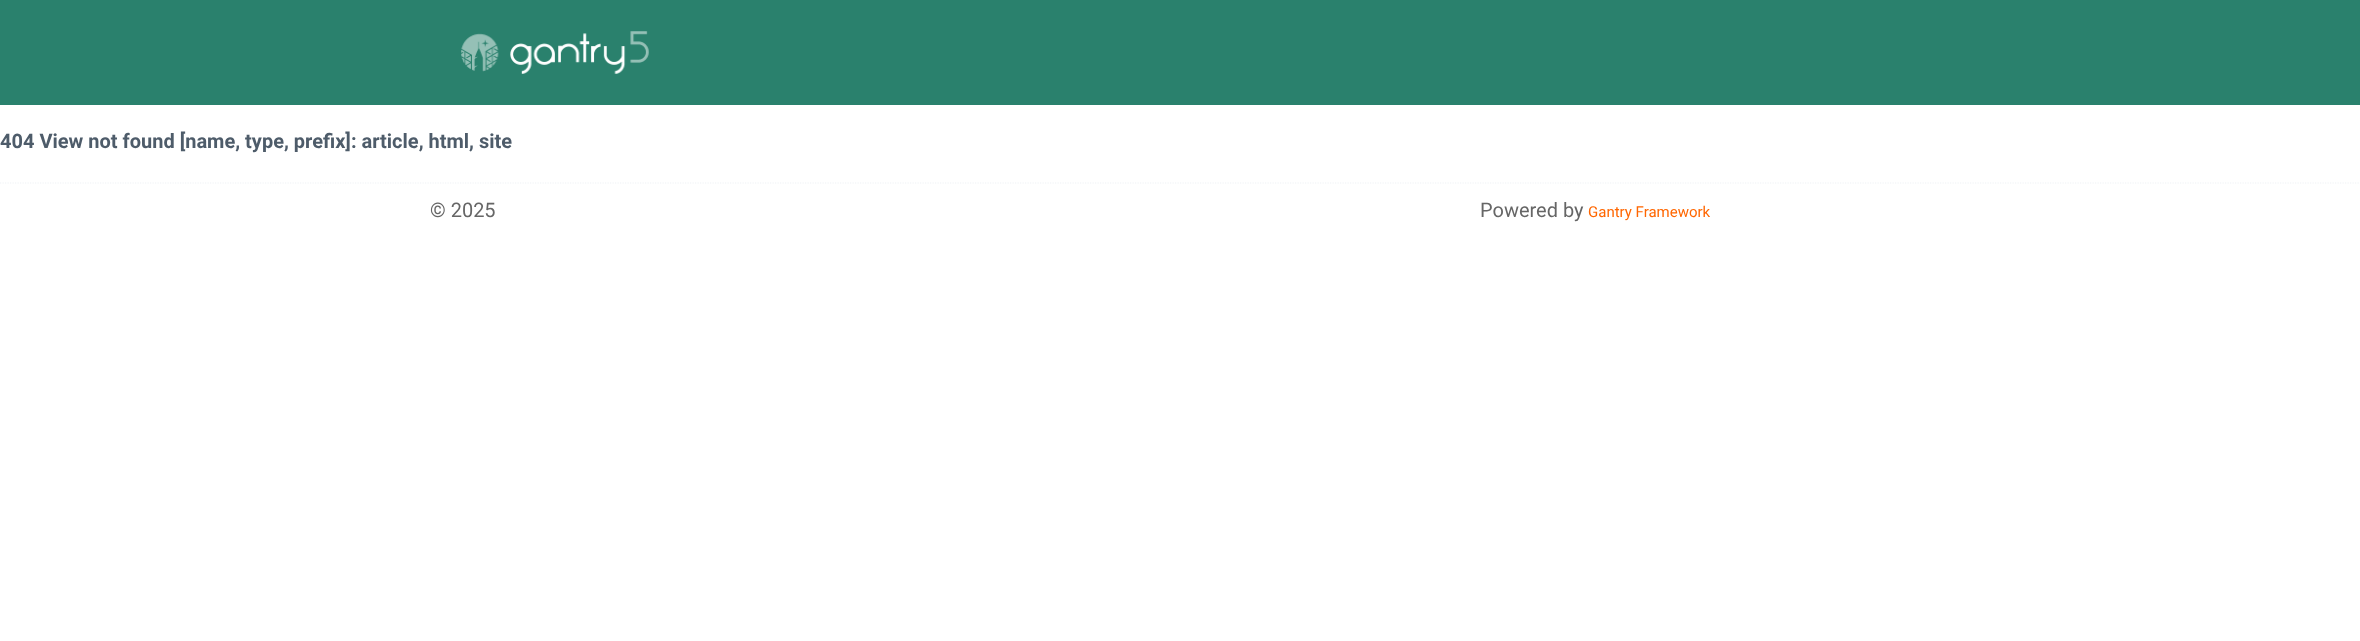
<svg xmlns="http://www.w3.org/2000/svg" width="2360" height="641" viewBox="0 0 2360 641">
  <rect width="100%" height="100%" fill="rgb(255,255,255)"/>
  <rect x="0" y="0" width="2360" height="105" fill="rgb(42,129,109)"/>
  <image x="461" y="31" width="188" height="43" href="pic1.png"/>
  <text x="0" y="148" font-family="Roboto" font-size="20" font-weight="bold" fill="rgb(78,92,106)">404 View not found [name, type, prefix]: article, html, site</text>
  <path d="M0 183H2360" fill="none" stroke="rgb(239,242,245)" stroke-width="1.2" stroke-dasharray="1.25 1.25"/>
  <g font-family="Roboto" font-size="20" fill="rgb(102,102,102)">
    <text x="430" y="217">© 2025</text>
    <text x="1480" y="217">Powered by</text>
  </g>
  <text x="1588" y="217" font-family="Roboto" font-size="15" fill="rgb(255,102,0)">Gantry Framework</text>
</svg>
